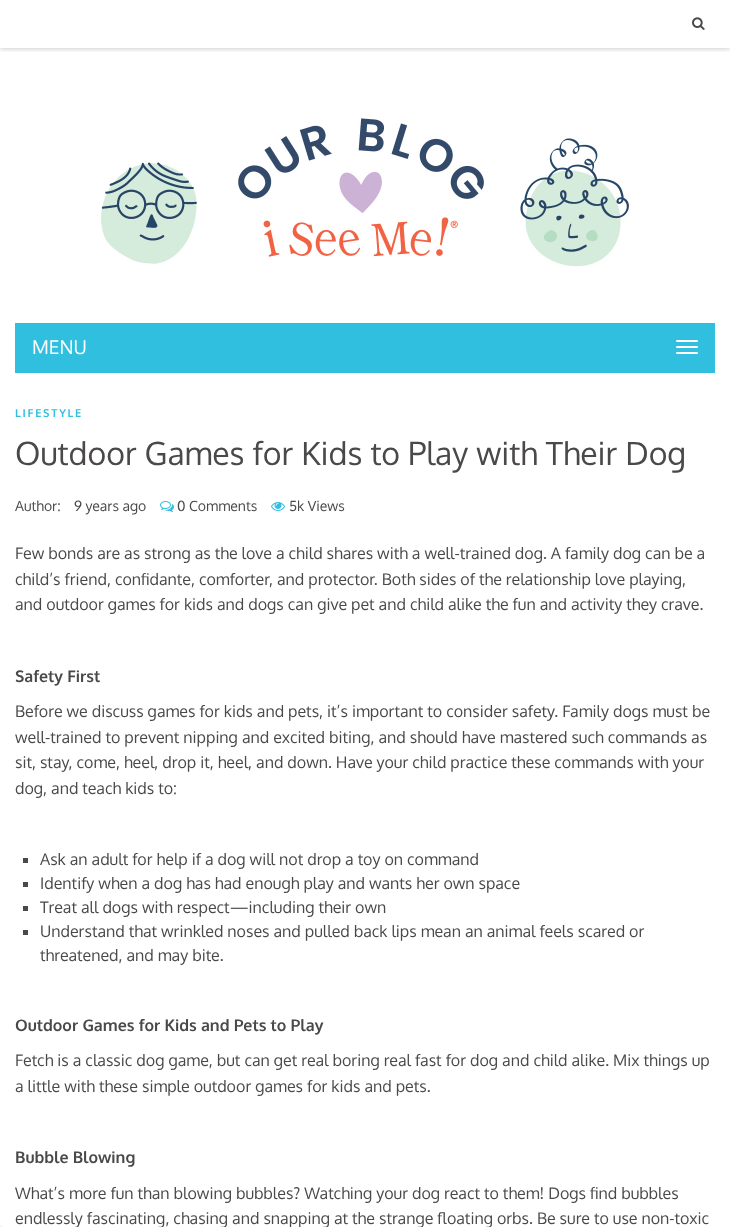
<svg xmlns="http://www.w3.org/2000/svg" width="730" height="1227" viewBox="0 0 730 1227">
  <defs>
    <clipPath id="clip1"><rect x="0" y="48" width="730" height="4"/></clipPath>
  </defs>
  <rect width="100%" height="100%" fill="rgb(255,255,255)"/>
  <g clip-path="url(#clip1)">
    <rect x="0" y="1" width="730" height="48" fill="rgba(0,0,0,0.2)" filter="blur(2.5px)"/>
  </g>
  <image x="692" y="17" width="13" height="13" href="pic1.png"/>
  <image x="101" y="118" width="528" height="149" href="pic2.png"/>
  <rect x="15" y="323" width="700" height="50" fill="rgb(49,191,223)"/>
  <text x="32" y="354" font-family="Oxygen" font-size="19" fill="rgb(255,255,255)">MENU</text>
  <rect x="676" y="340" width="22" height="2" rx="1" fill="rgb(255,255,255)"/>
  <rect x="676" y="346" width="22" height="2" rx="1" fill="rgb(255,255,255)"/>
  <rect x="676" y="352" width="22" height="2" rx="1" fill="rgb(255,255,255)"/>
  <rect x="0" y="1225" width="2" height="2" fill="rgb(245,245,245)"/>
  <text x="15" y="417" font-family="Oxygen" font-size="11" font-weight="bold" letter-spacing="1.75" fill="rgb(49,191,223)">LIFESTYLE</text>
  <text x="15" y="465" font-family="Oxygen" font-size="32" fill="rgb(74,72,72)">Outdoor Games for Kids to Play with Their Dog</text>
  <g font-family="Oxygen" font-size="14" fill="rgb(74,72,72)">
    <text x="15" y="511">Author:</text>
    <text x="74" y="511">9 years ago</text>
  </g>
  <image x="160" y="501" width="14" height="11" href="pic3.png"/>
  <text x="177" y="511" font-family="Oxygen" font-size="14" fill="rgb(74,72,72)">0 Comments</text>
  <image x="271" y="502" width="14" height="9" href="pic4.png"/>
  <text x="289" y="511" font-family="Oxygen" font-size="14" fill="rgb(74,72,72)">5k Views</text>
  <g font-family="Oxygen" font-size="16" fill="rgb(74,72,72)">
    <text>
      <tspan x="15" y="559">Few bonds are as strong as the love a child shares with a well-trained dog. A family dog can be a</tspan>
      <tspan x="15" y="585">child’s friend, confidante, comforter, and protector. Both sides of the relationship love playing,</tspan>
      <tspan x="15" y="610">and outdoor games for kids and dogs can give pet and child alike the fun and activity they crave.</tspan>
    </text>
  </g>
  <text x="15" y="682" font-family="Oxygen" font-size="16" font-weight="bold" fill="rgb(74,72,72)">Safety First</text>
  <g font-family="Oxygen" font-size="16" fill="rgb(74,72,72)">
    <text>
      <tspan x="15" y="717">Before we discuss games for kids and pets, it’s important to consider safety. Family dogs must be</tspan>
      <tspan x="15" y="743">well-trained to prevent nipping and excited biting, and should have mastered such commands as</tspan>
      <tspan x="15" y="768">sit, stay, come, heel, drop it, heel, and down. Have your child practice these commands with your</tspan>
      <tspan x="15" y="794">dog, and teach kids to:</tspan>
    </text>
  </g>
  <rect x="23" y="858" width="5" height="5" fill="rgb(74,72,72)"/>
  <text x="40" y="865" font-family="Oxygen" font-size="16" fill="rgb(74,72,72)">Ask an adult for help if a dog will not drop a toy on command</text>
  <rect x="23" y="882" width="5" height="5" fill="rgb(74,72,72)"/>
  <text x="40" y="889" font-family="Oxygen" font-size="16" fill="rgb(74,72,72)">Identify when a dog has had enough play and wants her own space</text>
  <rect x="23" y="906" width="5" height="5" fill="rgb(74,72,72)"/>
  <text x="40" y="913" font-family="Oxygen" font-size="16" fill="rgb(74,72,72)">Treat all dogs with respect—including their own</text>
  <rect x="23" y="930" width="5" height="5" fill="rgb(74,72,72)"/>
  <g font-family="Oxygen" font-size="16" fill="rgb(74,72,72)">
    <text>
      <tspan x="40" y="937">Understand that wrinkled noses and pulled back lips mean an animal feels scared or</tspan>
      <tspan x="40" y="961">threatened, and may bite.</tspan>
    </text>
  </g>
  <text x="15" y="1031" font-family="Oxygen" font-size="16" font-weight="bold" fill="rgb(74,72,72)">Outdoor Games for Kids and Pets to Play</text>
  <g font-family="Oxygen" font-size="16" fill="rgb(74,72,72)">
    <text>
      <tspan x="15" y="1066">Fetch is a classic dog game, but can get real boring real fast for dog and child alike. Mix things up</tspan>
      <tspan x="15" y="1092">a little with these simple outdoor games for kids and pets.</tspan>
    </text>
  </g>
  <text x="15" y="1163" font-family="Oxygen" font-size="16" font-weight="bold" fill="rgb(74,72,72)">Bubble Blowing</text>
  <g font-family="Oxygen" font-size="16" fill="rgb(74,72,72)">
    <text>
      <tspan x="15" y="1199">What’s more fun than blowing bubbles? Watching your dog react to them! Dogs find bubbles</tspan>
      <tspan x="15" y="1224">endlessly fascinating, chasing and snapping at the strange floating orbs. Be sure to use non-toxic</tspan>
    </text>
  </g>
</svg>
